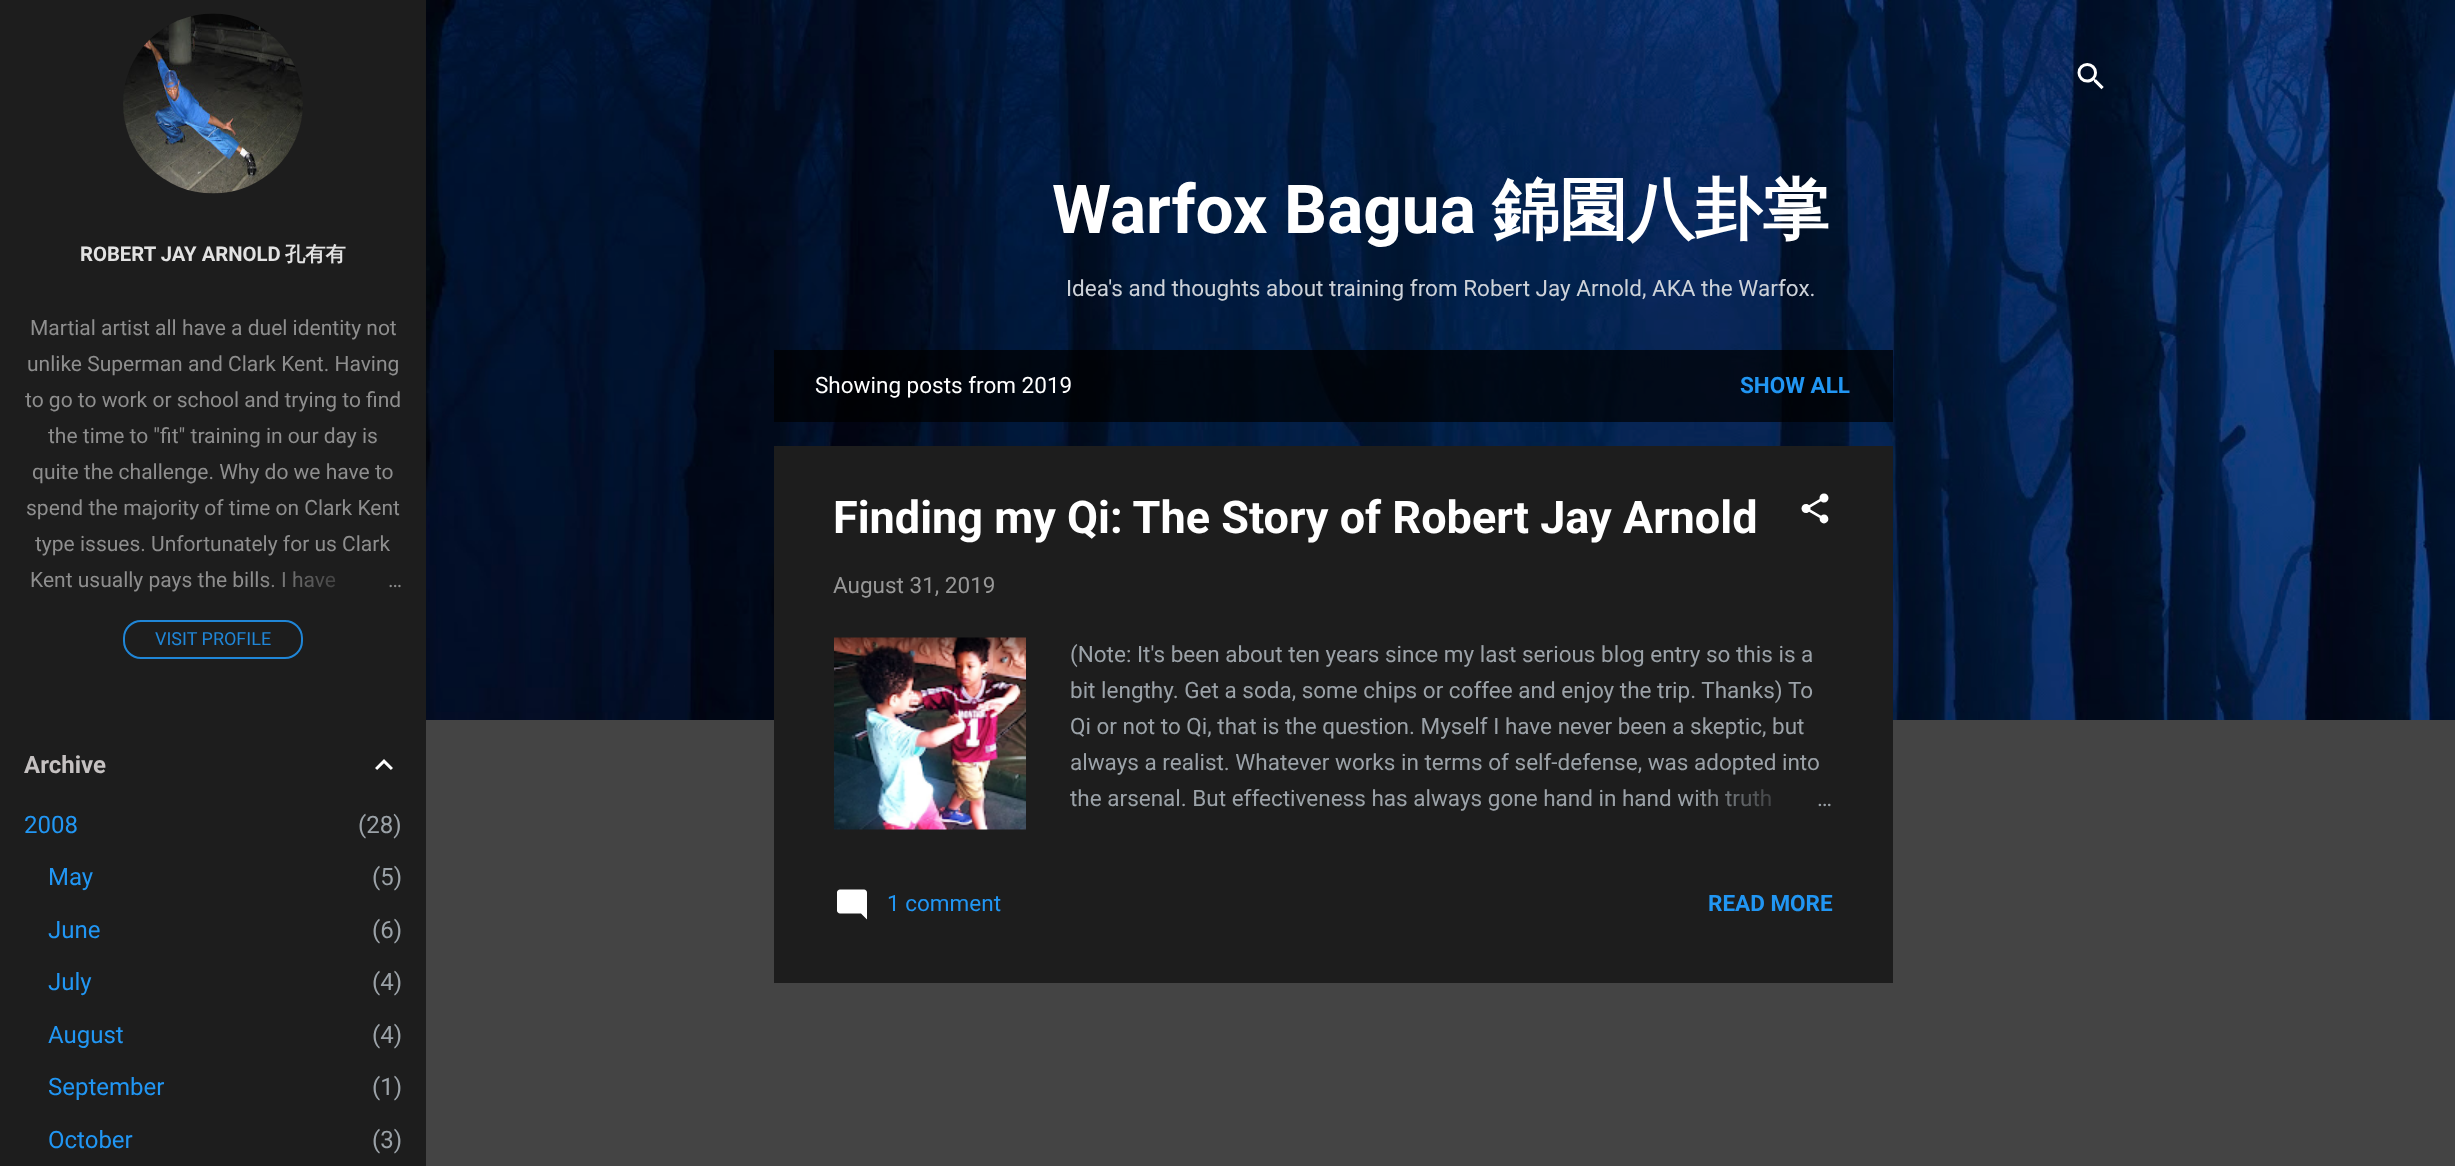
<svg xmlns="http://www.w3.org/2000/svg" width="2455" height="1166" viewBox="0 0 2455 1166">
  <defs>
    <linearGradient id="g1" gradientUnits="userSpaceOnUse" x1="402" y1="579" x2="258" y2="579"><stop offset="0" stop-color="rgb(29,29,29)"/><stop offset="0.2" stop-color="rgb(29,29,29)"/><stop offset="1" stop-color="rgb(29,29,29)" stop-opacity="0"/></linearGradient>
    <linearGradient id="g2" gradientUnits="userSpaceOnUse" x1="1833" y1="800" x2="1689" y2="800"><stop offset="0" stop-color="rgb(29,29,29)"/><stop offset="0.2" stop-color="rgb(29,29,29)"/><stop offset="1" stop-color="rgb(29,29,29)" stop-opacity="0"/></linearGradient>
  </defs>
  <rect width="100%" height="100%" fill="rgb(68,68,68)"/>
  <rect x="0" y="0" width="426" height="1166" fill="rgb(29,29,29)"/>
  <image x="123" y="13" width="180" height="181" href="pic1.png"/>
  <text x="80" y="261" font-family="Roboto" font-size="20.25" font-weight="bold" fill="rgb(226,226,226)">ROBERT JAY ARNOLD</text>
  <text x="285" y="261" font-family="WenQuanYi Zen Hei" font-size="20.25" font-weight="bold" fill="rgb(226,226,226)">孔有有</text>
  <g font-family="Roboto" font-size="21" fill="rgb(142,142,142)">
    <text x="30" y="335">Martial artist all have a duel identity not</text>
    <text x="27" y="371">unlike Superman and Clark Kent. Having</text>
    <text x="25" y="407">to go to work or school and trying to find</text>
    <text x="48" y="443">the time to "fit" training in our day is</text>
    <text x="32" y="479">quite the challenge. Why do we have to</text>
    <text x="26" y="515">spend the majority of time on Clark Kent</text>
    <text x="35" y="551">type issues. Unfortunately for us Clark</text>
    <text x="30" y="587">Kent usually pays the bills. I have</text>
  </g>
  <rect x="261" y="571" width="75" height="17" fill="url(#g1)"/>
  <text x="388" y="587" font-family="Roboto" font-size="21" fill="rgb(142,142,142)">…</text>
  <rect x="124" y="621" width="178" height="37" rx="17" fill="none" stroke="rgb(32,134,215)" stroke-width="2"/>
  <text x="155" y="645" font-family="Roboto" font-size="18" fill="rgb(32,134,215)">VISIT PROFILE</text>
  <text x="24" y="773" font-family="Roboto" font-size="24" font-weight="bold" fill="rgb(197,193,193)">Archive</text>
  <image x="375" y="759" width="18" height="11" href="pic2.png"/>
  <text x="24" y="833" font-family="Roboto" font-size="24" fill="rgb(33,150,243)">2008</text>
  <text x="358" y="833" font-family="Roboto" font-size="24" fill="rgb(155,162,168)">(28)</text>
  <text x="48" y="885" font-family="Roboto" font-size="24" fill="rgb(33,150,243)">May</text>
  <text x="372" y="885" font-family="Roboto" font-size="24" fill="rgb(155,162,168)">(5)</text>
  <text x="48" y="938" font-family="Roboto" font-size="24" fill="rgb(33,150,243)">June</text>
  <text x="372" y="938" font-family="Roboto" font-size="24" fill="rgb(155,162,168)">(6)</text>
  <text x="48" y="990" font-family="Roboto" font-size="24" fill="rgb(33,150,243)">July</text>
  <text x="372" y="990" font-family="Roboto" font-size="24" fill="rgb(155,162,168)">(4)</text>
  <text x="48" y="1043" font-family="Roboto" font-size="24" fill="rgb(33,150,243)">August</text>
  <text x="372" y="1043" font-family="Roboto" font-size="24" fill="rgb(155,162,168)">(4)</text>
  <text x="48" y="1095" font-family="Roboto" font-size="24" fill="rgb(33,150,243)">September</text>
  <text x="372" y="1095" font-family="Roboto" font-size="24" fill="rgb(155,162,168)">(1)</text>
  <text x="48" y="1148" font-family="Roboto" font-size="24" fill="rgb(33,150,243)">October</text>
  <text x="372" y="1148" font-family="Roboto" font-size="24" fill="rgb(155,162,168)">(3)</text>
  <image x="426" y="0" width="2029" height="720" href="pic3.png"/>
  <image x="2077" y="63" width="27" height="27" href="pic4.png"/>
  <text x="1052" y="233" font-family="Roboto" font-size="67.5" font-weight="bold" fill="rgb(255,255,255)">Warfox Bagua</text>
  <text x="1492" y="233" font-family="WenQuanYi Zen Hei" font-size="67.5" font-weight="bold" fill="rgb(255,255,255)">錦園八卦掌</text>
  <text x="1066" y="296" font-family="Roboto" font-size="22.5" fill="rgb(205,210,217)">Idea's and thoughts about training from Robert Jay Arnold, AKA the Warfox.</text>
  <rect x="774" y="350" width="1119" height="72" fill="rgba(0,0,0,0.7)"/>
  <text x="815" y="393" font-family="Roboto" font-size="22.5" fill="rgb(255,255,255)">Showing posts from 2019</text>
  <text x="1740" y="393" font-family="Roboto" font-size="22.5" font-weight="bold" fill="rgb(33,150,243)">SHOW ALL</text>
  <rect x="774" y="446" width="1119" height="537" fill="rgb(29,29,29)"/>
  <text x="833" y="533" font-family="Roboto" font-size="45" font-weight="bold" fill="rgb(255,255,255)">Finding my Qi: The Story of Robert Jay Arnold</text>
  <image x="1801" y="493" width="28" height="31" href="pic5.png"/>
  <text x="833" y="593" font-family="Roboto" font-size="22.5" fill="rgb(151,151,151)">August 31, 2019</text>
  <image x="834" y="637" width="192" height="193" href="pic6.png"/>
  <g font-family="Roboto" font-size="22.5" fill="rgb(155,162,168)">
    <text>
      <tspan x="1070" y="662">(Note: It's been about ten years since my last serious blog entry so this is a</tspan>
      <tspan x="1070" y="698">bit lengthy. Get a soda, some chips or coffee and enjoy the trip. Thanks)</tspan>
    </text>
    <text x="1788" y="698">To</text>
    <text>
      <tspan x="1070" y="734">Qi or not to Qi, that is the question. Myself I have never been a skeptic, but</tspan>
      <tspan x="1070" y="770">always a realist. Whatever works in terms of self-defense, was adopted into</tspan>
      <tspan x="1070" y="806">the arsenal. But effectiveness has always gone hand in hand with truth</tspan>
    </text>
  </g>
  <rect x="1691" y="789" width="80" height="18" fill="url(#g2)"/>
  <text x="1817" y="806" font-family="Roboto" font-size="22.5" fill="rgb(155,162,168)">…</text>
  <image x="837" y="889" width="30" height="31" href="pic7.png"/>
  <text x="887" y="911" font-family="Roboto" font-size="22.5" fill="rgb(33,150,243)">1 comment</text>
  <text x="1708" y="911" font-family="Roboto" font-size="22.5" font-weight="bold" fill="rgb(33,150,243)">READ MORE</text>
</svg>
